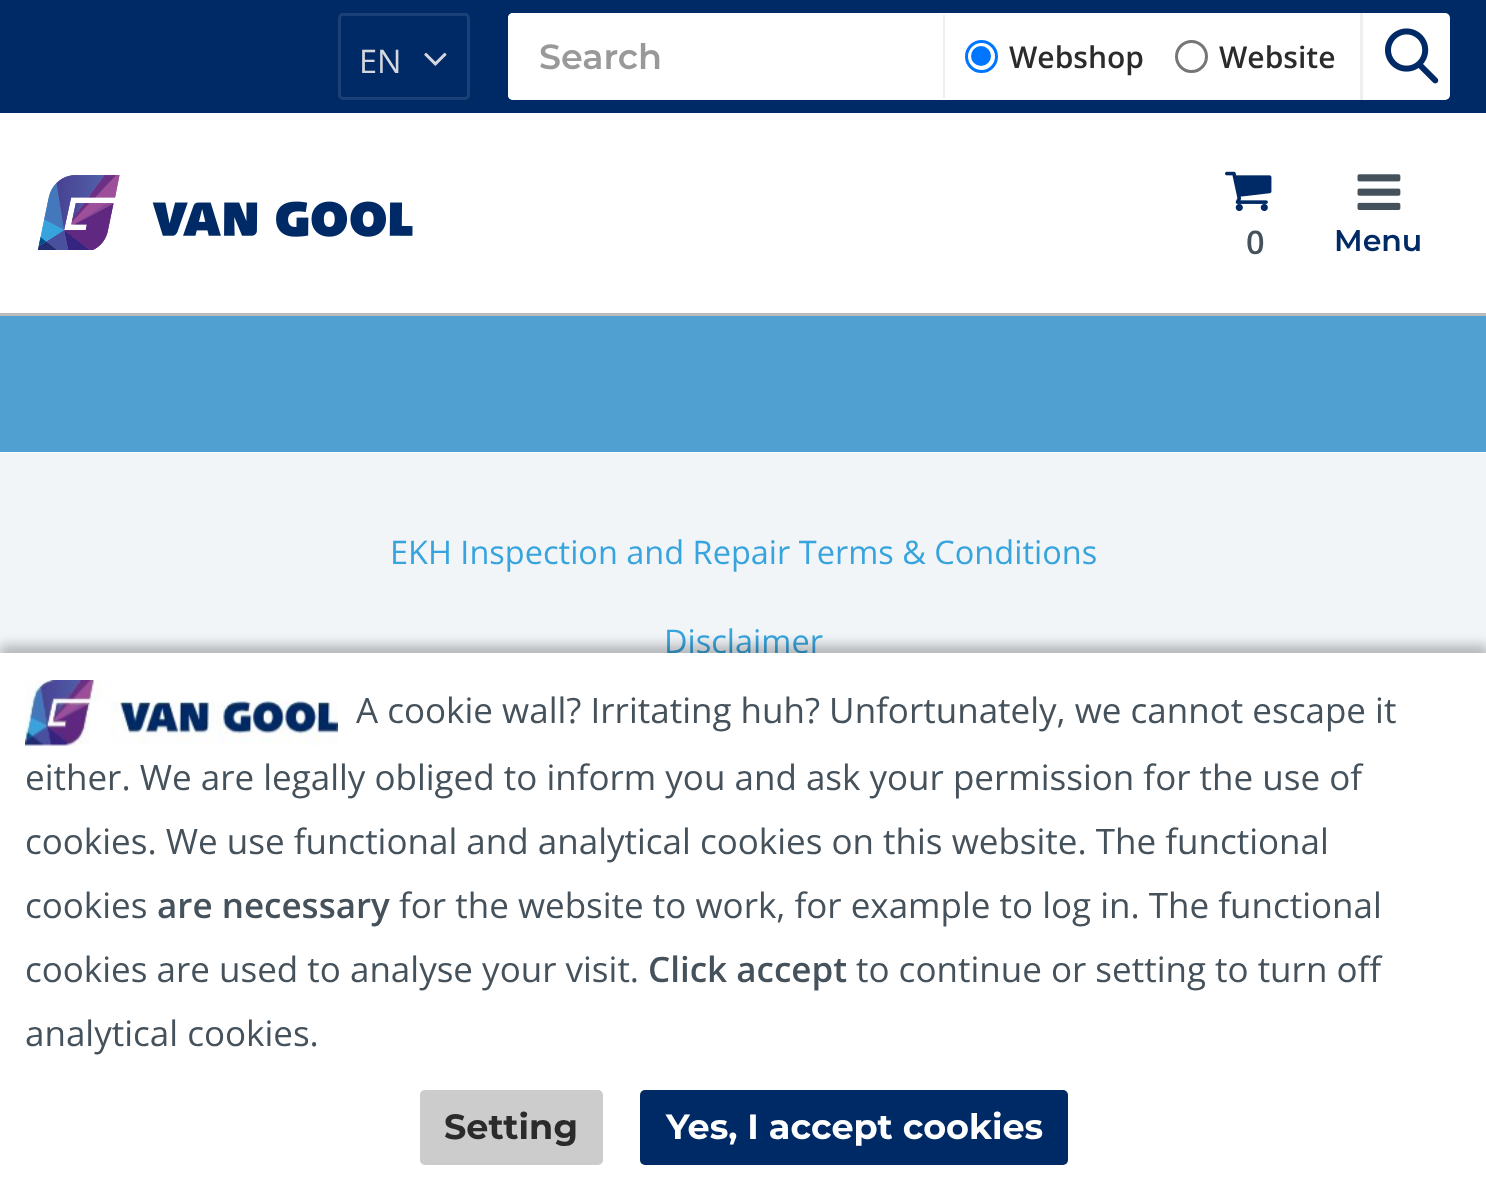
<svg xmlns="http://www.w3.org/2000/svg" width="1486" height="1188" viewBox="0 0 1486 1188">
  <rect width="100%" height="100%" fill="rgb(255,255,255)"/>
  <rect x="0" y="0" width="1486" height="113" fill="rgb(0,42,101)"/>
  <rect x="339.5" y="14.5" width="129" height="84" rx="3.5" fill="none" stroke="rgb(26,64,117)" stroke-width="3"/>
  <text x="359" y="73" font-family="Open Sans" font-size="32.5" fill="rgb(212,215,223)">EN</text>
  <image x="424" y="52" width="23" height="14" href="pic1.png"/>
  <rect x="508" y="13" width="942" height="87" rx="5" fill="rgb(255,255,255)"/>
  <rect x="508" y="13" width="437" height="87" rx="5" fill="rgb(255,255,255)"/>
  <rect x="943" y="15" width="2" height="83" fill="rgb(238,238,238)"/>
  <text x="539" y="69" font-family="Montserrat" font-size="35" font-weight="600" fill="rgb(153,153,153)">Search</text>
  <rect x="1360" y="13" width="3" height="87" fill="rgb(238,238,238)"/>
  <circle cx="981.5" cy="56.5" r="15" fill="none" stroke="rgb(0,117,255)" stroke-width="3"/>
  <circle cx="981" cy="56" r="10" fill="rgb(0,117,255)"/>
  <text x="1009" y="68" font-family="Open Sans" font-size="30" font-weight="600" fill="rgb(43,43,43)">Webshop</text>
  <circle cx="1191.5" cy="56.5" r="15" fill="none" stroke="rgb(118,118,118)" stroke-width="3"/>
  <text x="1219" y="68" font-family="Open Sans" font-size="30" font-weight="600" fill="rgb(43,43,43)">Website</text>
  <image x="1385" y="28" width="54" height="56" href="pic2.png"/>
  <rect x="0" y="313" width="1486" height="3" fill="rgb(187,187,187)"/>
  <image x="38" y="175" width="375" height="75" href="pic3.png"/>
  <image x="1225" y="171" width="47" height="41" href="pic4.png"/>
  <text x="1246" y="254" font-family="Open Sans" font-size="32.5" font-weight="600" fill="rgb(70,82,91)">0</text>
  <image x="1357" y="174" width="44" height="36" href="pic5.png"/>
  <text x="1334" y="251" font-family="Montserrat" font-size="30" font-weight="600" fill="rgb(0,42,101)">Menu</text>
  <rect x="0" y="316" width="1486" height="136" fill="rgb(80,160,209)"/>
  <rect x="0" y="453" width="1486" height="200" fill="rgb(241,245,248)"/>
  <g font-family="Open Sans" font-size="32.5" fill="rgb(56,164,221)">
    <text x="390" y="564">EKH Inspection and Repair Terms &amp; Conditions</text>
    <text x="664" y="653">Disclaimer</text>
  </g>
  <rect x="0" y="645" width="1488" height="538" fill="rgba(0,0,0,0.25)" filter="blur(6px)"/>
  <rect x="0" y="653" width="1486" height="535" fill="rgb(255,255,255)"/>
  <image x="25" y="680" width="313" height="66" href="pic6.png"/>
  <g font-family="Open Sans" font-size="35" fill="rgb(70,82,91)">
    <text x="356" y="723">A cookie wall? Irritating huh? Unfortunately, we cannot escape it</text>
    <text>
      <tspan x="25" y="790">either. We are legally obliged to inform you and ask your permission for the use of</tspan>
      <tspan x="25" y="854">cookies. We use functional and analytical cookies on this website. The functional</tspan>
      <tspan x="25" y="918">cookies</tspan>
    </text>
  </g>
  <text x="157" y="918" font-family="Open Sans" font-size="35" font-weight="600" fill="rgb(70,82,91)">are necessary</text>
  <g font-family="Open Sans" font-size="35" fill="rgb(70,82,91)">
    <text x="399" y="918">for the website to work, for example to log in. The functional</text>
    <text x="25" y="982">cookies are used to analyse your visit.</text>
  </g>
  <text x="648" y="982" font-family="Open Sans" font-size="35" font-weight="600" fill="rgb(70,82,91)">Click accept</text>
  <g font-family="Open Sans" font-size="35" fill="rgb(70,82,91)">
    <text x="856" y="982">to continue or setting to turn off</text>
    <text x="25" y="1046">analytical cookies.</text>
  </g>
  <rect x="420" y="1090" width="183" height="75" rx="5" fill="rgb(204,204,204)"/>
  <text x="444" y="1139" font-family="Montserrat" font-size="35" font-weight="bold" fill="rgb(43,43,43)">Setting</text>
  <rect x="640" y="1090" width="428" height="75" rx="5" fill="rgb(0,42,101)"/>
  <text x="666" y="1139" font-family="Montserrat" font-size="35" font-weight="bold" fill="rgb(255,255,255)">Yes, I accept cookies</text>
</svg>
